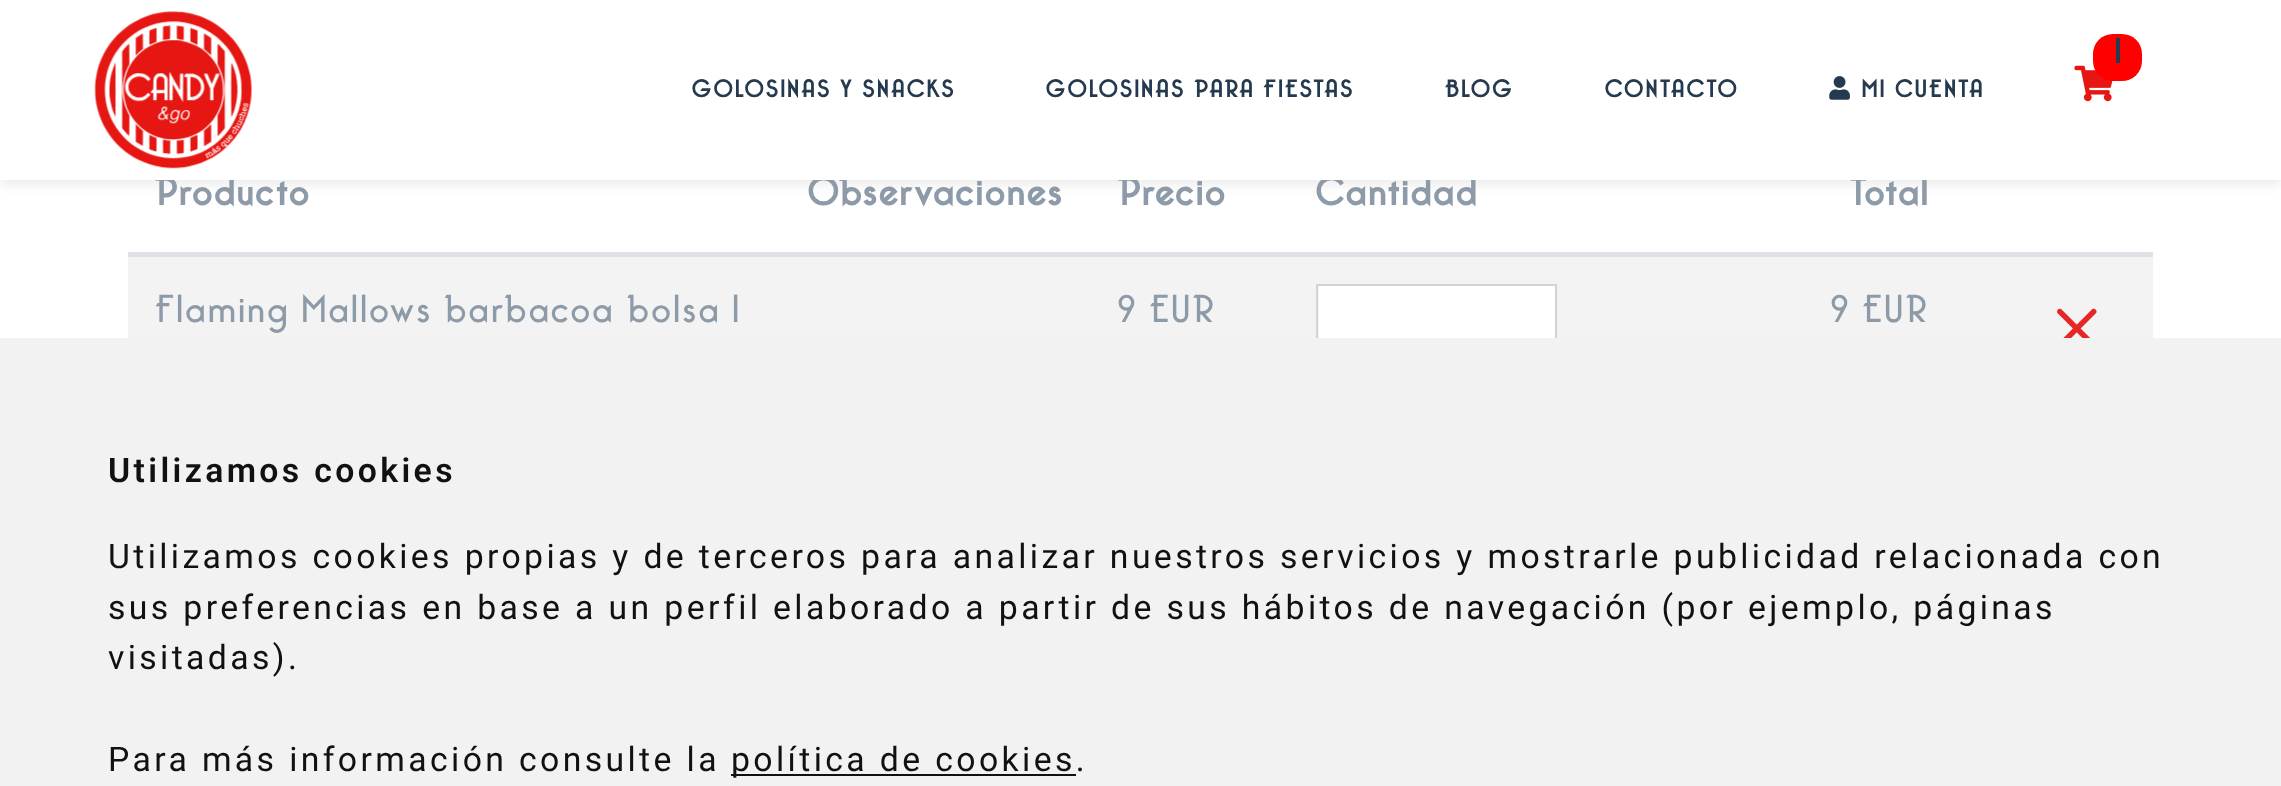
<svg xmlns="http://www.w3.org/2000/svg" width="2281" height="786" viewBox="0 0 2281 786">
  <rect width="100%" height="100%" fill="rgb(255,255,255)"/>
  <rect x="0" y="5" width="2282" height="180" fill="rgba(16,16,16,0.08)" filter="blur(5.5px)"/>
  <g font-family="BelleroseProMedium" font-size="38.25" font-weight="bold" letter-spacing="3.38" fill="rgb(141,154,168)">
    <text x="155" y="205">Producto</text>
    <text x="808" y="205">Observaciones</text>
    <text x="1118" y="205">Precio</text>
    <text x="1316" y="205">Cantidad</text>
    <text x="1850" y="205">Total</text>
  </g>
  <rect x="0" y="0" width="2281" height="180" fill="rgb(255,255,255)"/>
  <image x="94" y="11" width="158" height="158" href="pic1.png"/>
  <image x="2074" y="65" width="39" height="37" href="pic2.png"/>
  <rect x="2093" y="34" width="49" height="47" rx="20" fill="rgb(255,0,0)"/>
  <text x="2115" y="63" font-family="BelleroseProMedium" font-size="33.75" font-weight="bold" letter-spacing="3.38" fill="rgb(38,58,79)">1</text>
  <g font-family="BelleroseProMedium" font-size="23.6" font-weight="bold" letter-spacing="3.38" fill="rgb(38,58,79)">
    <text x="692" y="97">GOLOSINAS Y SNACKS</text>
    <text x="1046" y="97">GOLOSINAS PARA FIESTAS</text>
    <text x="1445" y="97">BLOG</text>
    <text x="1605" y="97">CONTACTO</text>
  </g>
  <image x="1829" y="76" width="21" height="24" href="pic3.png"/>
  <text x="1862" y="97" font-family="BelleroseProMedium" font-size="23.6" font-weight="bold" letter-spacing="3.38" fill="rgb(38,58,79)">MI CUENTA</text>
  <rect x="128" y="252" width="2025" height="5" fill="rgb(222,226,230)"/>
  <rect x="128" y="257" width="2025" height="81" fill="rgb(243,243,243)"/>
  <g font-family="BelleroseProMedium" font-size="38.25" font-weight="500" letter-spacing="3.38" fill="rgb(141,154,168)">
    <text x="155" y="322">Flaming Mallows barbacoa bolsa 1</text>
    <text x="1118" y="322">9 EUR</text>
  </g>
  <rect x="1319" y="286" width="236" height="52" fill="rgb(255,255,255)"/>
  <rect x="1317" y="285" width="239" height="128" fill="none" stroke="rgb(206,212,218)" stroke-width="2"/>
  <text x="1831" y="322" font-family="BelleroseProMedium" font-size="38.25" font-weight="500" letter-spacing="3.38" fill="rgb(141,154,168)">9 EUR</text>
  <image x="2057" y="308" width="40" height="30" href="pic4.png"/>
  <rect x="0" y="338" width="2281" height="448" fill="rgb(242,242,242)"/>
  <text x="108" y="482" font-family="Roboto" font-size="33.75" font-weight="600" letter-spacing="3.38" fill="rgb(17,17,17)">Utilizamos cookies</text>
  <g font-family="Roboto" font-size="33.75" letter-spacing="3.38" fill="rgb(17,17,17)">
    <text>
      <tspan x="108" y="568">Utilizamos cookies propias y de terceros para analizar nuestros servicios y mostrarle publicidad relacionada con</tspan>
      <tspan x="108" y="619">sus preferencias en base a un perfil elaborado a partir de sus hábitos de navegación (por ejemplo, páginas</tspan>
      <tspan x="108" y="669">visitadas).</tspan>
    </text>
    <text x="108" y="771">Para más información consulte la</text>
  </g>
  <rect x="731" y="774" width="345" height="2" fill="rgb(17,17,17)"/>
  <text x="731" y="771" font-family="Roboto" font-size="33.75" letter-spacing="3.38" fill="rgb(17,17,17)">política de cookies.</text>
</svg>
